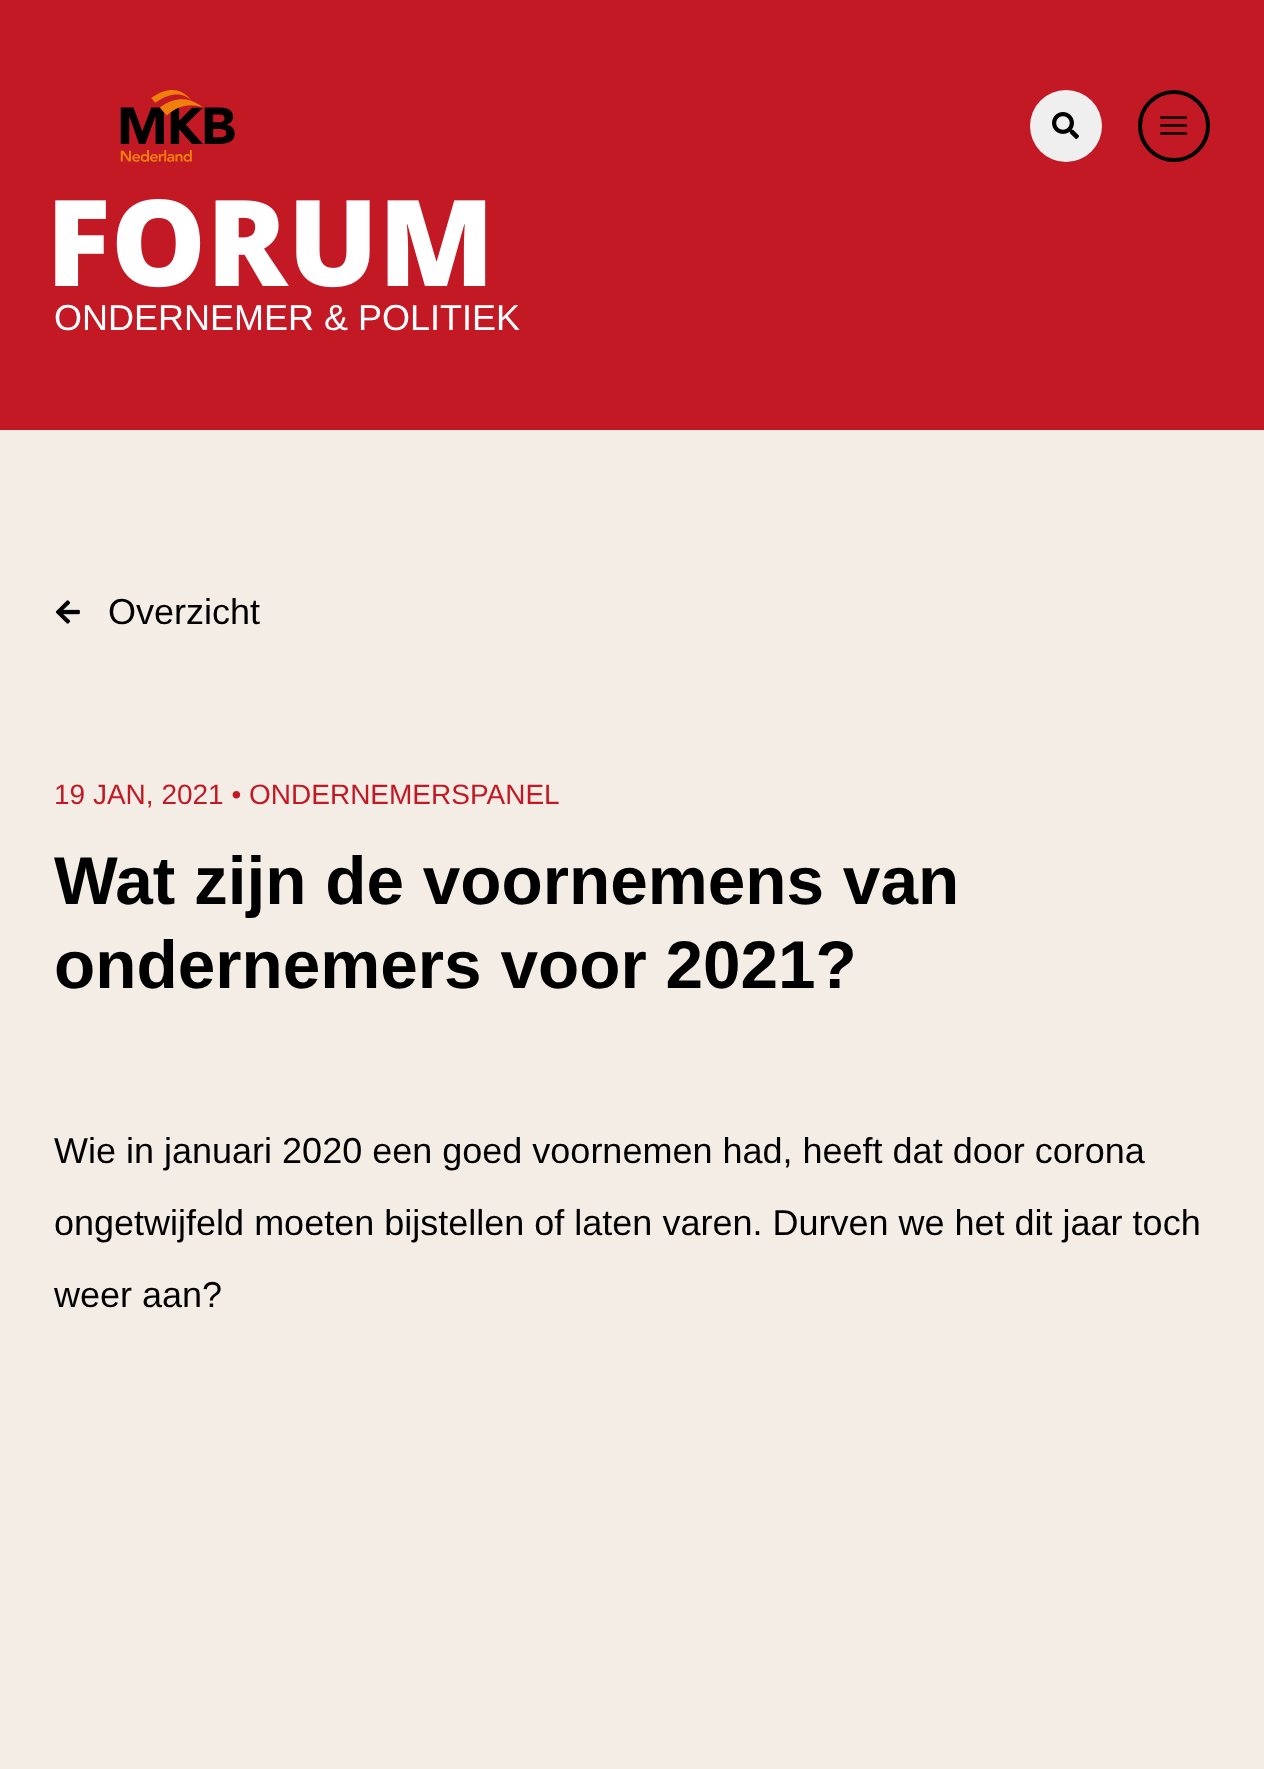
<svg xmlns="http://www.w3.org/2000/svg" width="1264" height="1769" viewBox="0 0 1264 1769">
  <rect width="100%" height="100%" fill="rgb(243,237,229)"/>
  <rect x="0" y="0" width="1264" height="430" fill="rgb(195,25,37)"/>
  <image x="120" y="90" width="115" height="72" href="pic1.png"/>
  <circle cx="1066" cy="126" r="36" fill="rgb(239,239,239)"/>
  <image x="1052" y="112" width="27" height="27" href="pic2.png"/>
  <circle cx="1174" cy="126" r="34" fill="none" stroke="rgb(0,0,0)" stroke-width="4"/>
  <image x="1160" y="116" width="27" height="19" href="pic3.png"/>
  <image x="55" y="199" width="431" height="89" href="pic4.png"/>
  <text x="54" y="330" font-family="Liberation Sans" font-size="36" fill="rgb(255,255,255)">ONDERNEMER &amp; POLITIEK</text>
  <image x="55" y="600" width="25" height="24" href="pic5.png"/>
  <text x="108" y="624" font-family="Liberation Sans" font-size="36" fill="rgb(0,0,0)">Overzicht</text>
  <text x="54" y="804" font-family="Liberation Sans" font-size="28" fill="rgb(195,25,37)">19 JAN, 2021 • ONDERNEMERSPANEL</text>
  <g font-family="Liberation Sans" font-size="67.5" font-weight="bold" fill="rgb(0,0,0)">
    <text>
      <tspan x="54" y="904">Wat zijn de voornemens van</tspan>
      <tspan x="54" y="988">ondernemers voor 2021?</tspan>
    </text>
  </g>
  <g font-family="Liberation Sans" font-size="36" fill="rgb(0,0,0)">
    <text x="54" y="1163">Wie in januari 2020 een goed voornemen had, heeft dat door corona</text>
    <text x="54" y="1235">ongetwijfeld moeten bijstellen of laten varen. Durven we het dit jaar toch</text>
    <text x="54" y="1307">weer aan?</text>
  </g>
</svg>
